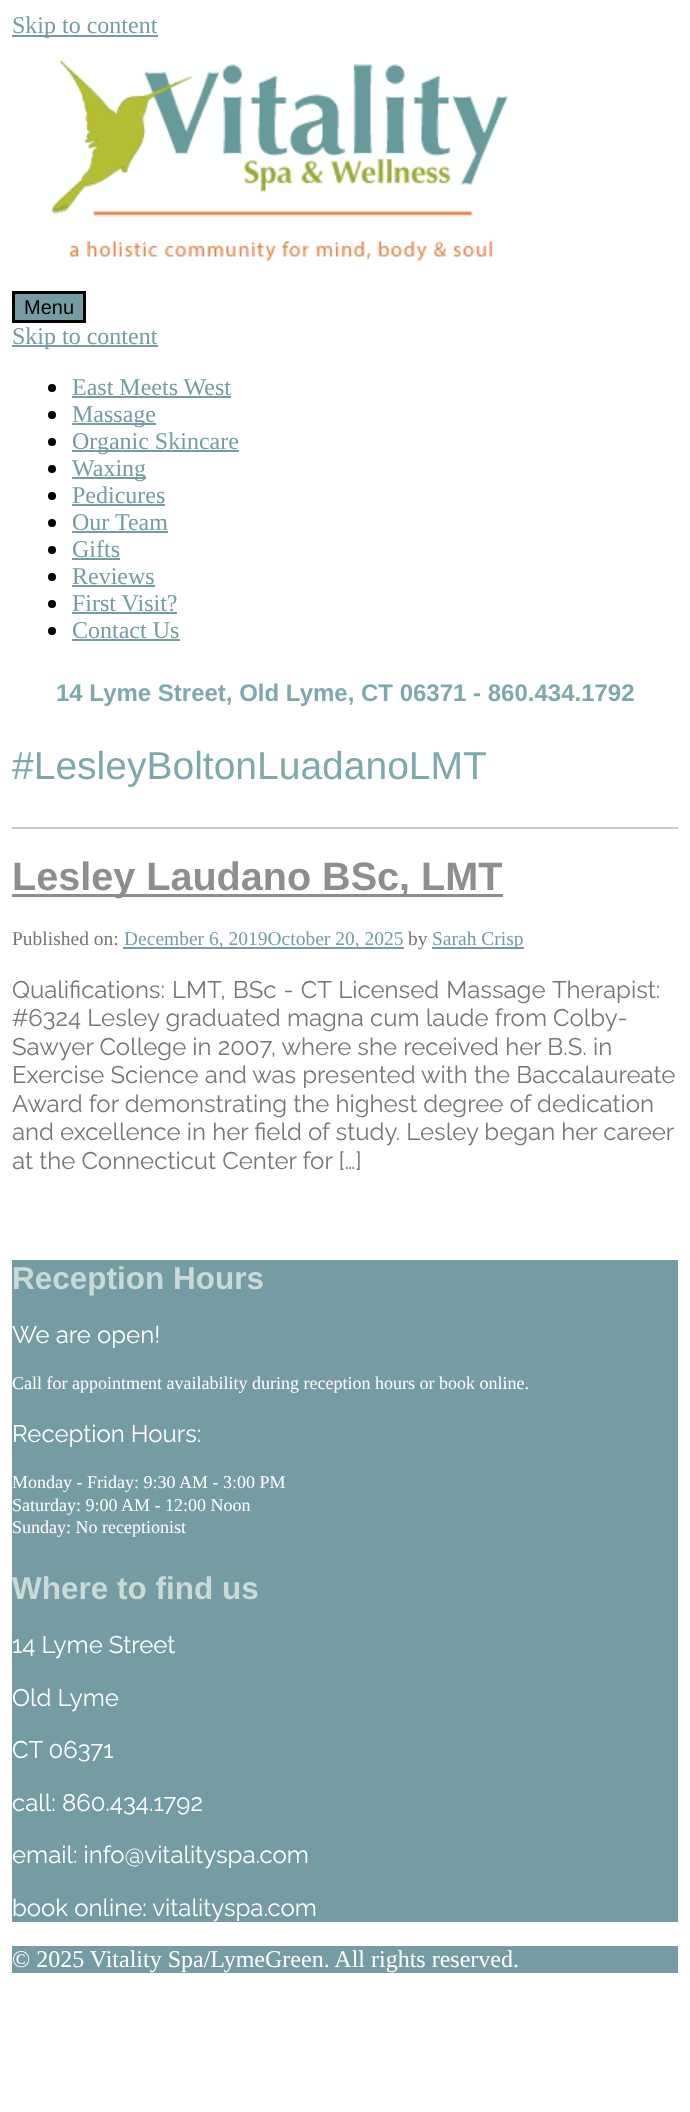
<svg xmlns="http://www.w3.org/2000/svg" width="690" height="2112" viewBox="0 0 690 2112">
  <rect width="100%" height="100%" fill="rgb(255,255,255)"/>
  <rect x="12" y="35" width="146" height="2" fill="rgb(118,156,163)"/>
  <text x="12" y="33" font-family="Liberation Serif" font-size="24" fill="rgb(118,156,163)">Skip to content</text>
  <image x="50" y="59" width="459" height="203" href="pic1.png"/>
  <rect x="13.5" y="292.5" width="71" height="29" fill="rgb(118,156,163)" stroke="rgb(0,0,0)" stroke-width="3"/>
  <text x="24" y="314" font-family="Liberation Sans" font-size="20" fill="rgb(0,0,0)">Menu</text>
  <rect x="12" y="345" width="146" height="2" fill="rgb(118,156,163)"/>
  <text x="12" y="344" font-family="Liberation Serif" font-size="24" fill="rgb(118,156,163)">Skip to content</text>
  <circle cx="52" cy="388" r="4" fill="rgb(0,0,0)"/>
  <text x="72" y="395" font-family="Liberation Serif" font-size="24" fill="rgb(118,156,163)">East Meets West</text>
  <rect x="72" y="396" width="159" height="2" fill="rgb(118,156,163)"/>
  <circle cx="52" cy="415" r="4" fill="rgb(0,0,0)"/>
  <rect x="72" y="423" width="84" height="2" fill="rgb(118,156,163)"/>
  <text x="72" y="422" font-family="Liberation Serif" font-size="24" fill="rgb(118,156,163)">Massage</text>
  <circle cx="52" cy="442" r="4" fill="rgb(0,0,0)"/>
  <rect x="72" y="450" width="167" height="2" fill="rgb(118,156,163)"/>
  <text x="72" y="449" font-family="Liberation Serif" font-size="24" fill="rgb(118,156,163)">Organic Skincare</text>
  <circle cx="52" cy="469" r="4" fill="rgb(0,0,0)"/>
  <rect x="72" y="477" width="74" height="2" fill="rgb(118,156,163)"/>
  <text x="72" y="476" font-family="Liberation Serif" font-size="24" fill="rgb(118,156,163)">Waxing</text>
  <circle cx="52" cy="496" r="4" fill="rgb(0,0,0)"/>
  <text x="72" y="503" font-family="Liberation Serif" font-size="24" fill="rgb(118,156,163)">Pedicures</text>
  <rect x="72" y="504" width="93" height="2" fill="rgb(118,156,163)"/>
  <circle cx="52" cy="523" r="4" fill="rgb(0,0,0)"/>
  <text x="72" y="530" font-family="Liberation Serif" font-size="24" fill="rgb(118,156,163)">Our Team</text>
  <rect x="72" y="531" width="96" height="2" fill="rgb(118,156,163)"/>
  <circle cx="52" cy="550" r="4" fill="rgb(0,0,0)"/>
  <text x="72" y="557" font-family="Liberation Serif" font-size="24" fill="rgb(118,156,163)">Gifts</text>
  <rect x="72" y="558" width="48" height="2" fill="rgb(118,156,163)"/>
  <circle cx="52" cy="577" r="4" fill="rgb(0,0,0)"/>
  <text x="72" y="584" font-family="Liberation Serif" font-size="24" fill="rgb(118,156,163)">Reviews</text>
  <rect x="72" y="585" width="83" height="2" fill="rgb(118,156,163)"/>
  <circle cx="52" cy="604" r="4" fill="rgb(0,0,0)"/>
  <text x="72" y="611" font-family="Liberation Serif" font-size="24" fill="rgb(118,156,163)">First Visit?</text>
  <rect x="72" y="612" width="105" height="2" fill="rgb(118,156,163)"/>
  <circle cx="52" cy="631" r="4" fill="rgb(0,0,0)"/>
  <text x="72" y="638" font-family="Liberation Serif" font-size="24" fill="rgb(118,156,163)">Contact Us</text>
  <rect x="72" y="639" width="108" height="2" fill="rgb(118,156,163)"/>
  <text x="56" y="701" font-family="Liberation Sans" font-size="24" font-weight="bold" fill="rgb(127,168,173)">14 Lyme Street, Old Lyme, CT 06371 - 860.434.1792</text>
  <rect x="12" y="827" width="666" height="2" fill="rgb(204,204,204)"/>
  <text x="12" y="779" font-family="Liberation Sans" font-size="39" fill="rgb(127,168,173)">#LesleyBoltonLuadanoLMT</text>
  <rect x="12" y="894" width="491" height="3" fill="rgb(142,142,142)"/>
  <text x="12" y="890" font-family="Liberation Sans" font-size="39.6" font-weight="bold" fill="rgb(142,142,142)">Lesley Laudano BSc, LMT</text>
  <text x="12" y="945" font-family="Liberation Serif" font-size="19.5" fill="rgb(118,118,118)">Published on:</text>
  <rect x="123" y="947" width="281" height="2" fill="rgb(118,156,163)"/>
  <text x="124" y="945" font-family="Liberation Serif" font-size="19.5" fill="rgb(118,156,163)">December 6, 2019October 20, 2025</text>
  <text x="408" y="945" font-family="Liberation Serif" font-size="19.5" fill="rgb(118,118,118)">by</text>
  <rect x="432" y="947" width="92" height="2" fill="rgb(118,156,163)"/>
  <text x="432" y="945" font-family="Liberation Serif" font-size="19.5" fill="rgb(118,156,163)">Sarah Crisp</text>
  <g font-family="Raleway" font-size="24" font-weight="100" fill="rgb(118,118,118)">
    <text>
      <tspan x="12" y="998" word-spacing="1">Qualifications: LMT, BSc - CT Licensed Massage Therapist:</tspan>
      <tspan x="12" y="1026">#6324 Lesley graduated magna cum laude from Colby-</tspan>
      <tspan x="12" y="1055">Sawyer College in 2007, where she received her B.S. in</tspan>
      <tspan x="12" y="1083">Exercise Science and was presented with the Baccalaureate</tspan>
      <tspan x="12" y="1112">Award for demonstrating the highest degree of dedication</tspan>
      <tspan x="12" y="1140">and excellence in her field of study. Lesley began her career</tspan>
      <tspan x="12" y="1169">at the Connecticut Center for […]</tspan>
    </text>
  </g>
  <rect x="12" y="1260" width="666" height="662" fill="rgb(118,156,163)"/>
  <text x="12" y="1289" font-family="Liberation Sans" font-size="31.5" font-weight="bold" fill="rgb(202,218,215)">Reception Hours</text>
  <text x="12" y="1343" font-family="Raleway" font-size="24" font-weight="100" fill="rgb(255,255,255)">We are open!</text>
  <text x="12" y="1389" font-family="Liberation Serif" font-size="18" fill="rgb(255,255,255)">Call for appointment availability during reception hours or book online.</text>
  <text x="12" y="1442" font-family="Raleway" font-size="24" font-weight="100" fill="rgb(255,255,255)">Reception Hours:</text>
  <g font-family="Liberation Serif" font-size="18" fill="rgb(255,255,255)">
    <text>
      <tspan x="12" y="1488">Monday - Friday: 9:30 AM - 3:00 PM</tspan>
      <tspan x="12" y="1511">Saturday: 9:00 AM - 12:00 Noon</tspan>
      <tspan x="12" y="1533">Sunday: No receptionist</tspan>
    </text>
  </g>
  <text x="12" y="1599" font-family="Liberation Sans" font-size="31.5" font-weight="bold" fill="rgb(202,218,215)">Where to find us</text>
  <g font-family="Raleway" font-size="24" font-weight="100" fill="rgb(255,255,255)">
    <text x="12" y="1653">14 Lyme Street</text>
    <text x="12" y="1706">Old Lyme</text>
    <text x="12" y="1758">CT 06371</text>
    <text x="12" y="1811">call: 860.434.1792</text>
    <text x="12" y="1863">email: info@vitalityspa.com</text>
    <text x="12" y="1916">book online: vitalityspa.com</text>
  </g>
  <rect x="12" y="1946" width="666" height="27" fill="rgb(118,156,163)"/>
  <text x="12" y="1967" font-family="Liberation Serif" font-size="24" fill="rgb(255,255,255)">© 2025 Vitality Spa/LymeGreen. All rights reserved.</text>
</svg>
